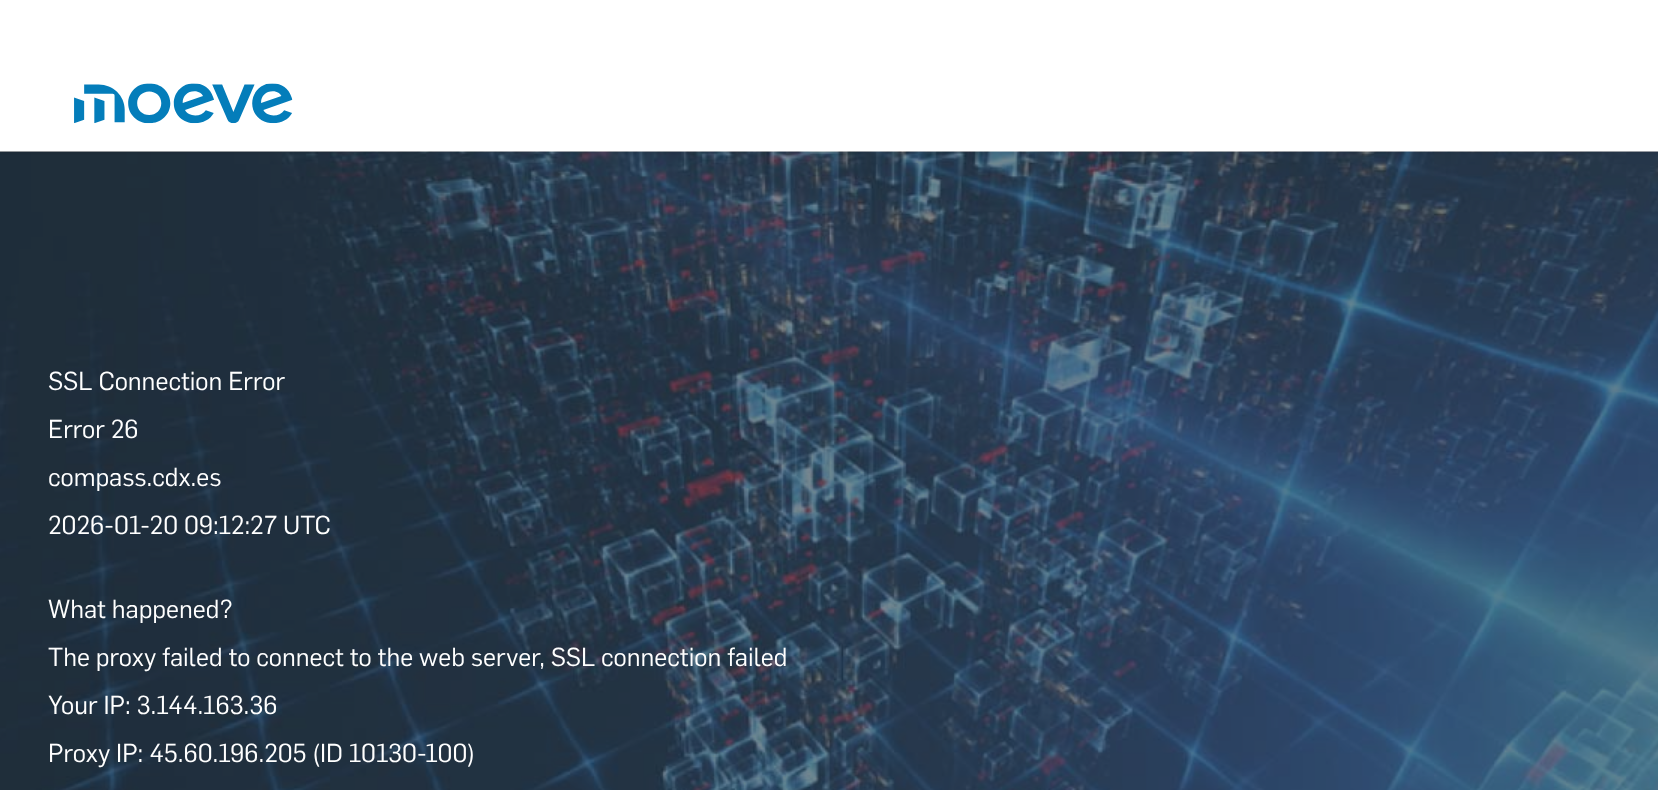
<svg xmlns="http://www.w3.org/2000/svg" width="1658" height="790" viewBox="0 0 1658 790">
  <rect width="100%" height="100%" fill="rgb(255,255,255)"/>
  <image x="0" y="83" width="1658" height="707" href="pic1.png"/>
</svg>
